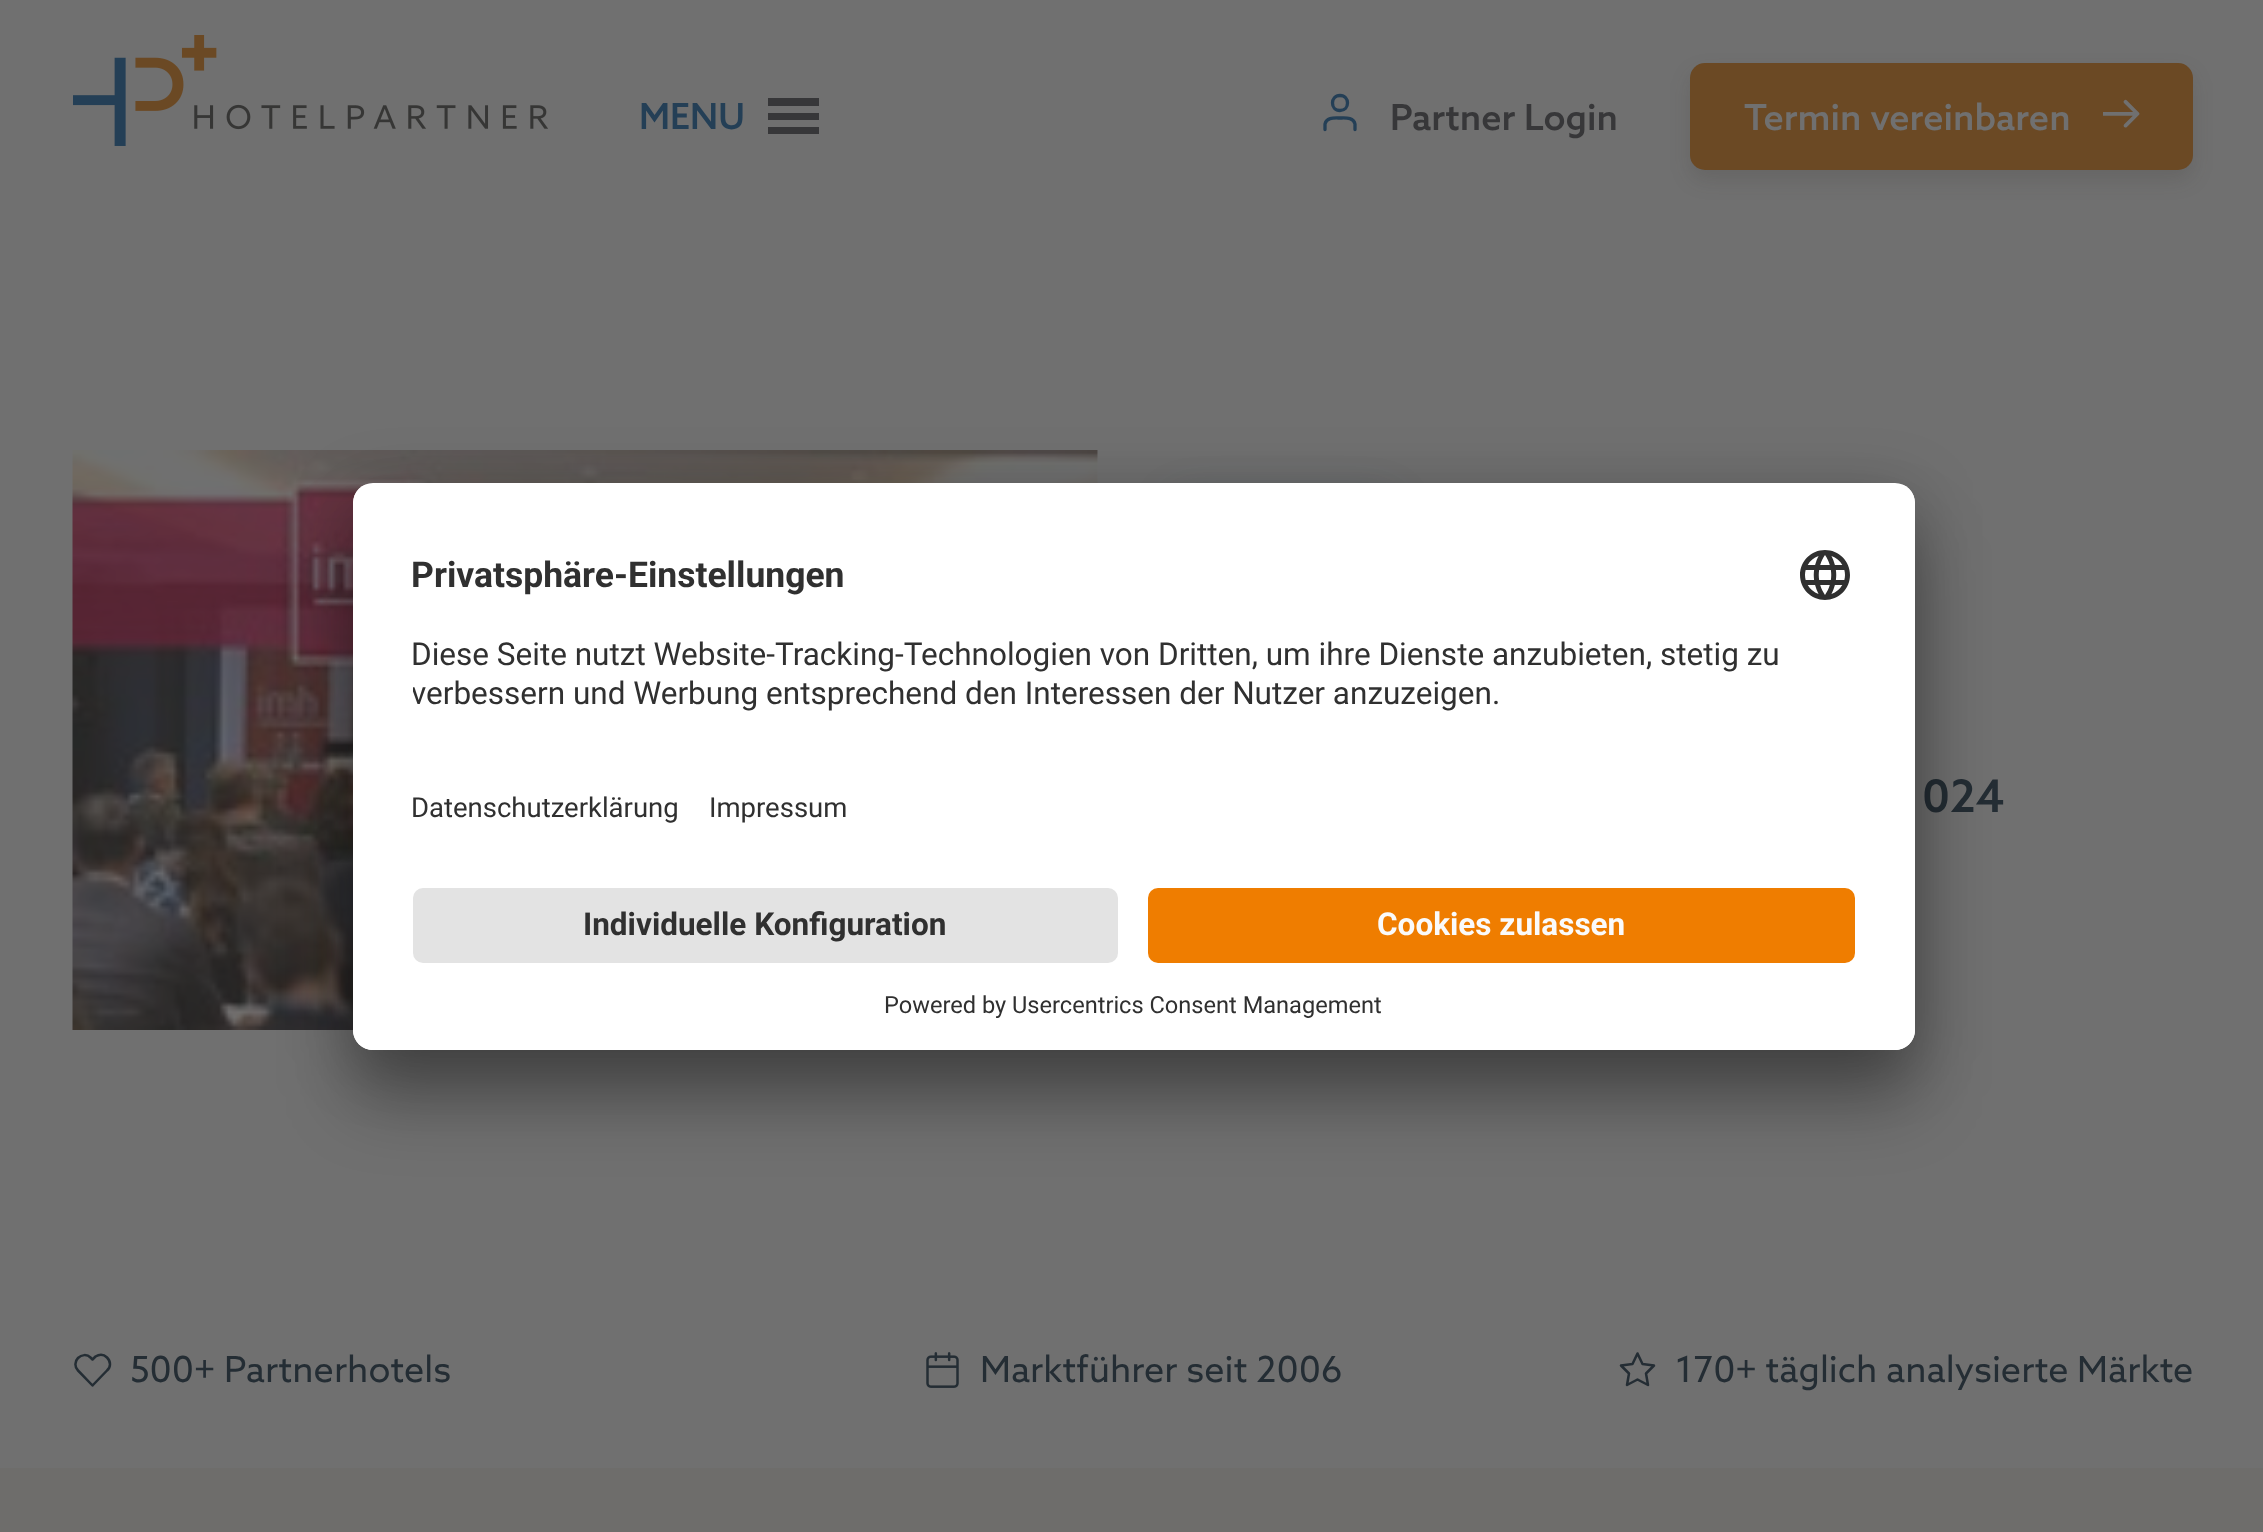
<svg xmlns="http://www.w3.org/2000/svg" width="2263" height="1532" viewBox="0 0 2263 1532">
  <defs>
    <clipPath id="clip1"><rect x="353" y="483" width="1562" height="567" rx="20"/></clipPath>
    <clipPath id="clip2"><path d="M373 483H1895C1906 483 1915 492 1915 503V868H353V503C353 492 362 483 373 483Z"/></clipPath>
    <clipPath id="clip3"><rect x="413" y="625" width="1442" height="98"/></clipPath>
  </defs>
  <rect width="100%" height="100%" fill="rgb(112,112,112)"/>
  <image x="73" y="35" width="475" height="111" href="pic1.png"/>
  <text x="639" y="129" font-family="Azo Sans" font-size="36" font-weight="500" fill="rgb(36,63,86)">MENU</text>
  <path d="M768 134H819V127H768ZM768 98V106H819V98ZM768 120H819V113H768Z" fill="rgb(55,55,57)"/>
  <path d="M1355 129.5V124C1353.5 117 1345.5 118 1340 118C1334.5 118 1326.5 117 1325 124V129.5M1340 110.5C1350 110.5 1350 95.5 1340 95.5C1330 95.5 1330 110.5 1340 110.5Z" fill="none" stroke="rgb(36,63,86)" stroke-width="3.3" stroke-linecap="round" stroke-linejoin="round"/>
  <text x="1390" y="130" font-family="Azo Sans" font-size="36" font-weight="500" fill="rgb(55,55,57)">Partner Login</text>
  <rect x="1690" y="73" width="503" height="107" rx="15" fill="rgba(50,43,36,0.15)" filter="blur(10px)"/>
  <rect x="1690" y="63" width="503" height="107" rx="15" fill="rgb(107,73,36)"/>
  <text x="1744" y="130" font-family="Azo Sans" font-size="36" font-weight="500" fill="rgb(112,112,112)">Termin vereinbaren</text>
  <image x="2103" y="99" width="37" height="29" href="pic2.png"/>
  <image x="72" y="450" width="1026" height="580" href="pic3.png"/>
  <rect x="1170" y="498" width="225" height="210" rx="20" fill="rgba(36,59,79,0.2)" filter="blur(20px)"/>
  <text x="1922" y="812" font-family="Azo Sans" font-size="45" font-weight="500" fill="rgb(36,45,52)">024</text>
  <path d="M107 1357.5C104 1354.5 99.5 1354 95.5 1356.5L92.5 1359.5L90.5 1357.5C87 1354 81.5 1354.5 78 1358C74.5 1361.5 74.5 1367 78 1370.5L92.5 1385.5L107 1370.5C111 1367 111 1361.5 107 1357.5Z" fill="none" stroke="rgb(36,45,52)" stroke-width="2.5" stroke-linecap="round" stroke-linejoin="round"/>
  <text x="130" y="1382" font-family="Azo Sans" font-size="36" fill="rgb(36,45,52)">500+ Partnerhotels</text>
  <image x="926" y="1352" width="33" height="36" href="pic4.png"/>
  <text x="980" y="1382" font-family="Azo Sans" font-size="36" fill="rgb(36,45,52)">Marktführer seit 2006</text>
  <path d="M1637.5 1353.5L1642.5 1364L1654 1365.5L1646 1373.5L1648 1385L1637.5 1379.5L1627 1385L1629 1373.5L1621 1365.5L1632.5 1364Z" fill="none" stroke="rgb(36,45,52)" stroke-width="2.5" stroke-linecap="round" stroke-linejoin="round"/>
  <text x="1675" y="1382" font-family="Azo Sans" font-size="36" fill="rgb(36,45,52)">170+ täglich analysierte Märkte</text>
  <rect x="0" y="1468" width="2263" height="64" fill="rgb(110,109,107)"/>
  <rect x="353" y="533" width="1562" height="567" rx="20" fill="rgba(0,0,0,0.3)" filter="blur(35px)"/>
  <rect x="353" y="495" width="1562" height="568" rx="20" fill="rgba(0,0,0,0.22)" filter="blur(32.5px)"/>
  <rect x="353" y="483" width="1562" height="567" rx="20" fill="rgb(255,255,255)"/>
  <g clip-path="url(#clip1)">
    <g clip-path="url(#clip2)">
      <rect x="353" y="485" width="1562" height="383" fill="rgb(255,255,255)"/>
    </g>
  </g>
  <text x="411" y="587" font-family="Roboto" font-size="35.5" font-weight="bold" fill="rgb(48,48,48)">Privatsphäre-Einstellungen</text>
  <image x="1800" y="550" width="50" height="50" href="pic5.png"/>
  <text x="411" y="665" font-family="Roboto" font-size="31.5" fill="rgb(48,48,48)">Diese Seite nutzt Website-Tracking-Technologien von Dritten, um ihre Dienste anzubieten, stetig zu</text>
  <g clip-path="url(#clip3)">
    <text x="411" y="704" font-family="Roboto" font-size="31.5" fill="rgb(48,48,48)">verbessern und Werbung entsprechend den Interessen der Nutzer anzuzeigen.</text>
  </g>
  <g font-family="Roboto" font-size="27.5" fill="rgb(48,48,48)">
    <text x="411" y="817">Datenschutzerklärung</text>
    <text x="709" y="817">Impressum</text>
  </g>
  <path d="M353 868H1915V1030C1915 1041 1906 1050 1895 1050H373C362 1050 353 1041 353 1030Z" fill="rgb(255,255,255)"/>
  <rect x="413" y="888" width="705" height="75" rx="10" fill="rgb(227,227,227)"/>
  <text x="583" y="935" font-family="Roboto" font-size="31.5" font-weight="bold" fill="rgb(48,48,48)">Individuelle Konfiguration</text>
  <rect x="1148" y="888" width="707" height="75" rx="10" fill="rgb(239,125,0)"/>
  <text x="1377" y="935" font-family="Roboto" font-size="31.5" font-weight="bold" fill="rgb(250,250,250)">Cookies zulassen</text>
  <text x="884" y="1013" font-family="Roboto" font-size="23.6" fill="rgb(48,48,48)">Powered by Usercentrics Consent Management</text>
</svg>
